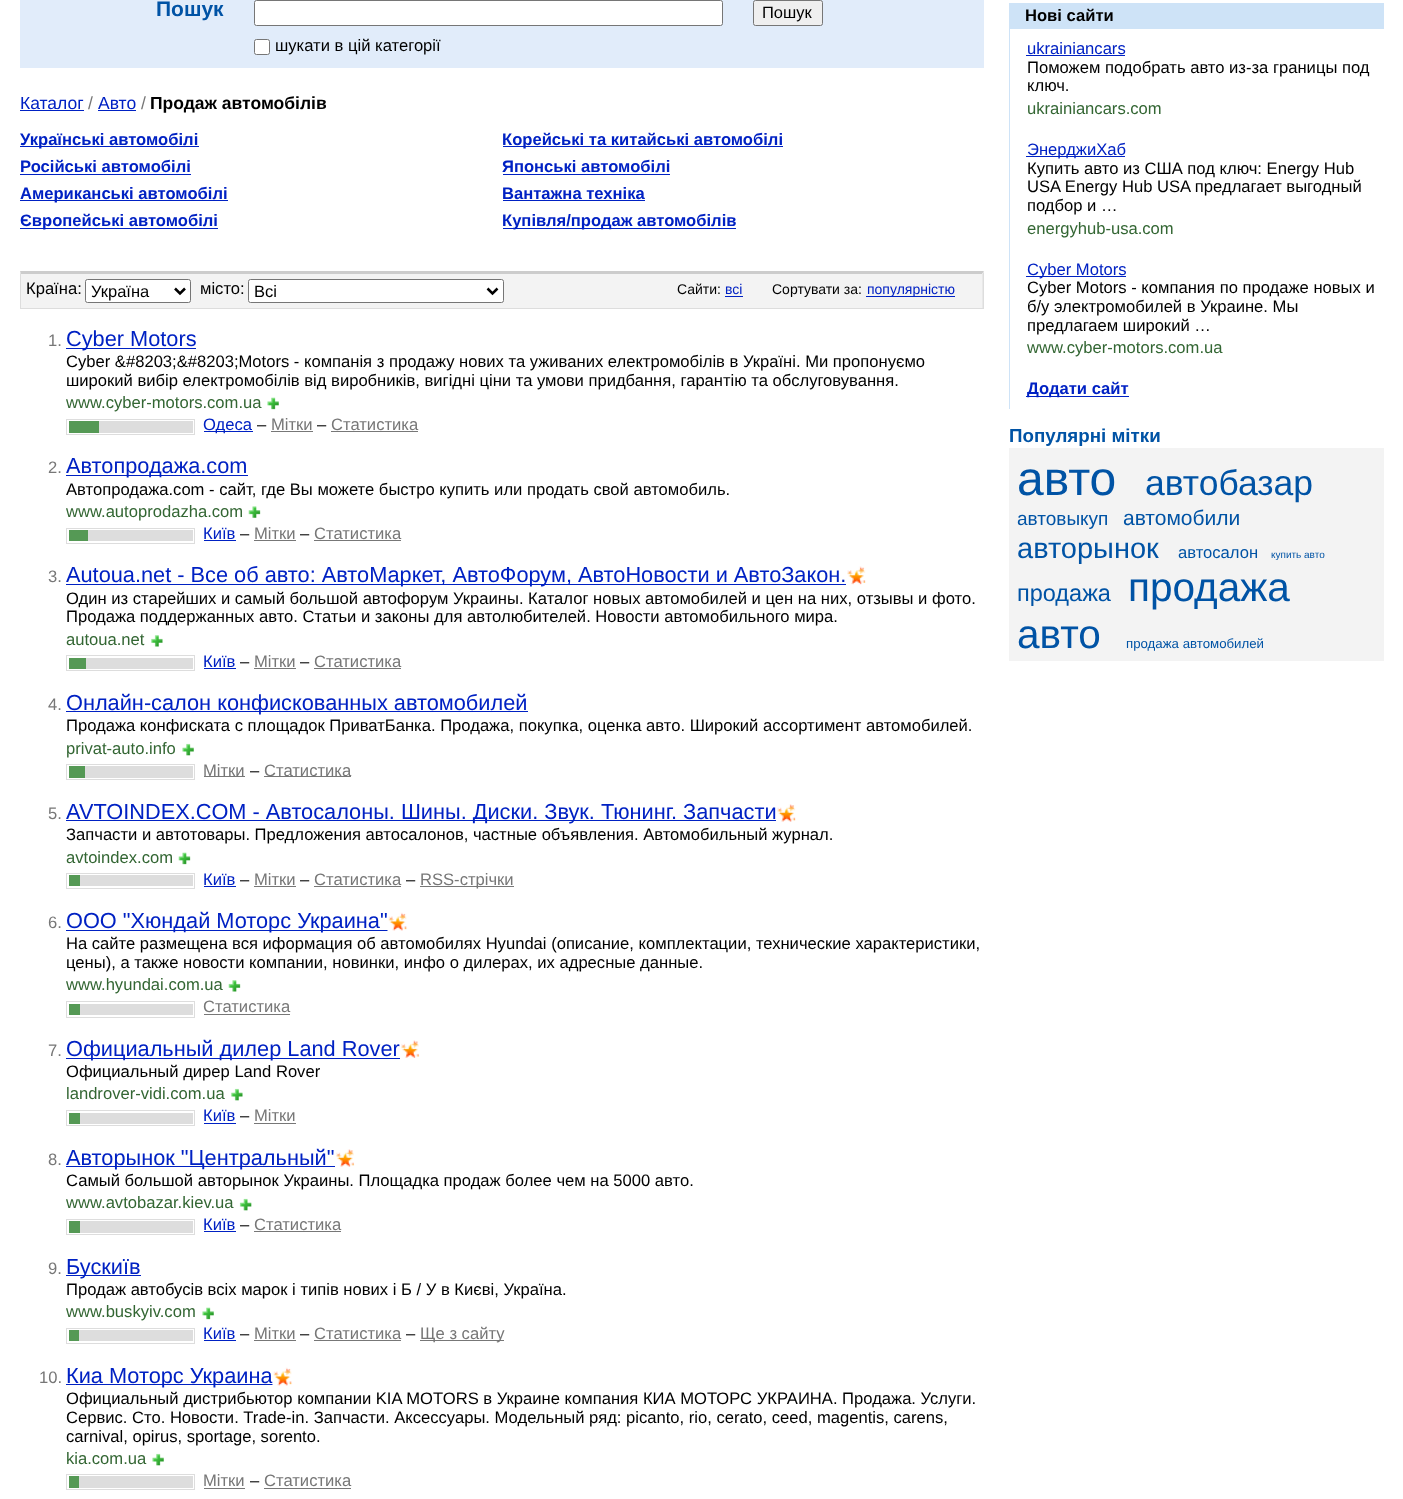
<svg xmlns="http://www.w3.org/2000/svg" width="1403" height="1499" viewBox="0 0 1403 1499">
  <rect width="100%" height="100%" fill="rgb(255,255,255)"/>
  <rect x="20" y="0" width="964" height="68" fill="rgb(225,236,250)"/>
  <text x="156" y="16" font-family="Liberation Sans" font-size="21" font-weight="bold" fill="rgb(0,83,165)">Пошук</text>
  <rect x="753.5" y="0.5" width="69" height="25" rx="2" fill="rgb(239,239,239)" stroke="rgb(118,118,118)"/>
  <text x="762" y="18" font-family="Liberation Sans" font-size="16.5" fill="rgb(0,0,0)">Пошук</text>
  <rect x="254.5" y="0.5" width="468" height="25" rx="2" fill="rgb(255,255,255)" stroke="rgb(118,118,118)"/>
  <rect x="254.5" y="39.5" width="15" height="15" rx="2" fill="rgb(255,255,255)" stroke="rgb(118,118,118)"/>
  <text x="275" y="51" font-family="Liberation Sans" font-size="16.6" fill="rgb(0,0,0)">шукати в цій категорії</text>
  <text x="20" y="109" font-family="Liberation Sans" font-size="17.5" fill="rgb(0,33,195)">Каталог</text>
  <rect x="20" y="110" width="64" height="1" fill="rgb(0,33,195)"/>
  <text x="88" y="109" font-family="Liberation Sans" font-size="17.5" fill="rgb(119,119,119)">/</text>
  <text x="98" y="109" font-family="Liberation Sans" font-size="17.5" fill="rgb(0,33,195)">Авто</text>
  <rect x="98" y="110" width="38" height="1" fill="rgb(0,33,195)"/>
  <text x="141" y="109" font-family="Liberation Sans" font-size="17.5" fill="rgb(119,119,119)">/</text>
  <text x="150" y="109" font-family="Liberation Sans" font-size="17.5" font-weight="bold" fill="rgb(0,0,0)">Продаж автомобілів</text>
  <rect x="20" y="146" width="179" height="1" fill="rgb(0,33,195)"/>
  <g font-family="Liberation Sans" font-size="16.6" font-weight="bold" fill="rgb(0,33,195)">
    <text>
      <tspan x="20" y="145">Українські автомобілі</tspan>
      <tspan x="20" y="172">Російські автомобілі</tspan>
    </text>
  </g>
  <rect x="20" y="174" width="171" height="1" fill="rgb(0,33,195)"/>
  <rect x="20" y="200" width="208" height="1" fill="rgb(0,33,195)"/>
  <text x="20" y="199" font-family="Liberation Sans" font-size="16.6" font-weight="bold" fill="rgb(0,33,195)">Американські автомобілі</text>
  <rect x="20" y="228" width="198" height="1" fill="rgb(0,33,195)"/>
  <text x="20" y="226" font-family="Liberation Sans" font-size="16.6" font-weight="bold" fill="rgb(0,33,195)">Європейські автомобілі</text>
  <rect x="503" y="146" width="280" height="1" fill="rgb(0,33,195)"/>
  <g font-family="Liberation Sans" font-size="16.6" font-weight="bold" fill="rgb(0,33,195)">
    <text>
      <tspan x="502" y="145">Корейські та китайські автомобілі</tspan>
      <tspan x="502" y="172">Японські автомобілі</tspan>
    </text>
  </g>
  <rect x="503" y="174" width="167" height="1" fill="rgb(0,33,195)"/>
  <text x="502" y="199" font-family="Liberation Sans" font-size="16.6" font-weight="bold" fill="rgb(0,33,195)">Вантажна техніка</text>
  <rect x="503" y="200" width="142" height="1" fill="rgb(0,33,195)"/>
  <rect x="503" y="228" width="233" height="1" fill="rgb(0,33,195)"/>
  <text x="502" y="226" font-family="Liberation Sans" font-size="16.6" font-weight="bold" fill="rgb(0,33,195)">Купівля/продаж автомобілів</text>
  <rect x="21" y="274" width="962" height="34" fill="rgb(243,243,243)"/>
  <path d="M20 271H984L982 274H21Z" fill="rgb(204,204,204)"/>
  <path d="M984 271V309L982.5 307.5V274Z" fill="rgb(221,221,221)"/>
  <rect x="20" y="308" width="964" height="1" fill="rgb(221,221,221)"/>
  <path d="M20 309V271L21 274V307.5Z" fill="rgb(221,221,221)"/>
  <text x="26" y="294" font-family="Liberation Sans" font-size="16.6" fill="rgb(0,0,0)">Країна:</text>
  <rect x="85.5" y="279.5" width="105" height="23" rx="2" fill="rgb(255,255,255)" stroke="rgb(118,118,118)"/>
  <path d="M175 288.5L180 293.5L185 288.5" fill="none" stroke="rgb(0,0,0)" stroke-width="2.5"/>
  <text x="91" y="297" font-family="Liberation Sans" font-size="16.5" fill="rgb(0,0,0)">Україна</text>
  <text x="200" y="294" font-family="Liberation Sans" font-size="16.6" fill="rgb(0,0,0)">місто:</text>
  <rect x="248.5" y="279.5" width="255" height="23" rx="2" fill="rgb(255,255,255)" stroke="rgb(118,118,118)"/>
  <path d="M487.5 288.5L492.5 293.5L497.5 288.5" fill="none" stroke="rgb(0,0,0)" stroke-width="2.5"/>
  <text x="254" y="297" font-family="Liberation Sans" font-size="16.5" fill="rgb(0,0,0)">Всі</text>
  <text x="677" y="294" font-family="Liberation Sans" font-size="14" fill="rgb(0,0,0)">Сайти:</text>
  <text x="725" y="294" font-family="Liberation Sans" font-size="14" fill="rgb(0,33,195)">всі</text>
  <rect x="725" y="296" width="18" height="1" fill="rgb(0,33,195)"/>
  <text x="772" y="294" font-family="Liberation Sans" font-size="14" fill="rgb(0,0,0)">Сортувати за:</text>
  <rect x="866" y="296" width="89" height="1" fill="rgb(0,33,195)"/>
  <text x="867" y="294" font-family="Liberation Sans" font-size="14" fill="rgb(0,33,195)">популярністю</text>
  <text x="48" y="346" font-family="Liberation Sans" font-size="16.6" fill="rgb(119,119,119)">1.</text>
  <rect x="66" y="348" width="130" height="1" fill="rgb(0,33,195)"/>
  <text x="66" y="346" font-family="Liberation Sans" font-size="21.75" fill="rgb(0,33,195)">Cyber Motors</text>
  <g font-family="Liberation Sans" font-size="16.6" fill="rgb(0,0,0)">
    <text>
      <tspan x="66" y="367">Cyber &amp;#8203;&amp;#8203;Motors - компанія з продажу нових та уживаних електромобілів в Україні. Ми пропонуємо</tspan>
      <tspan x="66" y="386">широкий вибір електромобілів від виробників, вигідні ціни та умови придбання, гарантію та обслуговування.</tspan>
    </text>
  </g>
  <text x="66" y="408" font-family="Liberation Sans" font-size="16.6" fill="rgb(51,102,51)">www.cyber-motors.com.ua</text>
  <image x="267" y="397" width="12" height="13" href="pic1.png"/>
  <rect x="66.5" y="419.5" width="128" height="15" fill="none" stroke="rgb(221,221,221)"/>
  <rect x="99" y="421" width="94" height="12" fill="rgb(221,221,221)"/>
  <rect x="69" y="421" width="30" height="12" fill="rgb(85,153,85)"/>
  <rect x="204" y="431" width="49" height="1" fill="rgb(0,33,195)"/>
  <text x="203" y="430" font-family="Liberation Sans" font-size="16.6" fill="rgb(0,33,195)">Одеса</text>
  <text x="257" y="430" font-family="Liberation Sans" font-size="16.6" fill="rgb(0,0,0)">–</text>
  <text x="271" y="430" font-family="Liberation Sans" font-size="16.6" fill="rgb(119,119,119)">Мітки</text>
  <rect x="271" y="431" width="42" height="1" fill="rgb(119,119,119)"/>
  <text x="317" y="430" font-family="Liberation Sans" font-size="16.6" fill="rgb(0,0,0)">–</text>
  <text x="331" y="430" font-family="Liberation Sans" font-size="16.6" fill="rgb(119,119,119)">Статистика</text>
  <rect x="331" y="431" width="87" height="1" fill="rgb(119,119,119)"/>
  <text x="48" y="473" font-family="Liberation Sans" font-size="16.6" fill="rgb(119,119,119)">2.</text>
  <rect x="66" y="475" width="182" height="1" fill="rgb(0,33,195)"/>
  <text x="66" y="473" font-family="Liberation Sans" font-size="21.75" fill="rgb(0,33,195)">Автопродажа.com</text>
  <text x="66" y="495" font-family="Liberation Sans" font-size="16.6" fill="rgb(0,0,0)">Автопродажа.com - сайт, где Вы можете быстро купить или продать свой автомобиль.</text>
  <text x="66" y="517" font-family="Liberation Sans" font-size="16.6" fill="rgb(51,102,51)">www.autoprodazha.com</text>
  <image x="248" y="506" width="13" height="12" href="pic2.png"/>
  <rect x="66.5" y="528.5" width="128" height="15" fill="none" stroke="rgb(221,221,221)"/>
  <rect x="88" y="530" width="105" height="11" fill="rgb(221,221,221)"/>
  <rect x="69" y="530" width="19" height="11" fill="rgb(85,153,85)"/>
  <text x="203" y="539" font-family="Liberation Sans" font-size="16.6" fill="rgb(0,33,195)">Київ</text>
  <rect x="204" y="540" width="32" height="1" fill="rgb(0,33,195)"/>
  <text x="240" y="539" font-family="Liberation Sans" font-size="16.6" fill="rgb(0,0,0)">–</text>
  <text x="254" y="539" font-family="Liberation Sans" font-size="16.6" fill="rgb(119,119,119)">Мітки</text>
  <rect x="254" y="540" width="42" height="1" fill="rgb(119,119,119)"/>
  <text x="300" y="539" font-family="Liberation Sans" font-size="16.6" fill="rgb(0,0,0)">–</text>
  <text x="314" y="539" font-family="Liberation Sans" font-size="16.6" fill="rgb(119,119,119)">Статистика</text>
  <rect x="314" y="540" width="87" height="1" fill="rgb(119,119,119)"/>
  <text x="48" y="582" font-family="Liberation Sans" font-size="16.6" fill="rgb(119,119,119)">3.</text>
  <rect x="66" y="584" width="780" height="1" fill="rgb(0,33,195)"/>
  <text x="66" y="582" font-family="Liberation Sans" font-size="21.75" fill="rgb(0,33,195)">Autoua.net - Все об авто: АвтоМаркет, АвтоФорум, АвтоНовости и АвтоЗакон.</text>
  <image x="847" y="566" width="19" height="19" href="pic3.png"/>
  <g font-family="Liberation Sans" font-size="16.6" fill="rgb(0,0,0)">
    <text>
      <tspan x="66" y="604">Один из старейших и самый большой автофорум Украины. Каталог новых автомобилей и цен на них, отзывы и фото.</tspan>
      <tspan x="66" y="622">Продажа поддержанных авто. Статьи и законы для автолюбителей. Новости автомобильного мира.</tspan>
    </text>
  </g>
  <text x="66" y="645" font-family="Liberation Sans" font-size="16.6" fill="rgb(51,102,51)">autoua.net</text>
  <image x="151" y="635" width="12" height="12" href="pic4.png"/>
  <rect x="66.5" y="655.5" width="128" height="15" fill="none" stroke="rgb(221,221,221)"/>
  <rect x="86" y="658" width="107" height="11" fill="rgb(221,221,221)"/>
  <rect x="69" y="658" width="17" height="11" fill="rgb(85,153,85)"/>
  <text x="203" y="667" font-family="Liberation Sans" font-size="16.6" fill="rgb(0,33,195)">Київ</text>
  <rect x="204" y="668" width="32" height="1" fill="rgb(0,33,195)"/>
  <text x="240" y="667" font-family="Liberation Sans" font-size="16.6" fill="rgb(0,0,0)">–</text>
  <text x="254" y="667" font-family="Liberation Sans" font-size="16.6" fill="rgb(119,119,119)">Мітки</text>
  <rect x="254" y="668" width="42" height="1" fill="rgb(119,119,119)"/>
  <text x="300" y="667" font-family="Liberation Sans" font-size="16.6" fill="rgb(0,0,0)">–</text>
  <text x="314" y="667" font-family="Liberation Sans" font-size="16.6" fill="rgb(119,119,119)">Статистика</text>
  <rect x="314" y="668" width="87" height="1" fill="rgb(119,119,119)"/>
  <text x="48" y="710" font-family="Liberation Sans" font-size="16.6" fill="rgb(119,119,119)">4.</text>
  <rect x="66" y="711" width="462" height="1" fill="rgb(0,33,195)"/>
  <text x="66" y="710" font-family="Liberation Sans" font-size="21.75" fill="rgb(0,33,195)">Онлайн-салон конфискованных автомобилей</text>
  <text x="66" y="731" font-family="Liberation Sans" font-size="16.6" fill="rgb(0,0,0)">Продажа конфиската с площадок ПриватБанка. Продажа, покупка, оценка авто. Широкий ассортимент автомобилей.</text>
  <text x="66" y="754" font-family="Liberation Sans" font-size="16.6" fill="rgb(51,102,51)">privat-auto.info</text>
  <image x="182" y="743" width="12" height="13" href="pic5.png"/>
  <rect x="66.5" y="764.5" width="128" height="15" fill="none" stroke="rgb(221,221,221)"/>
  <rect x="85" y="766" width="108" height="12" fill="rgb(221,221,221)"/>
  <rect x="69" y="766" width="16" height="12" fill="rgb(85,153,85)"/>
  <text x="203" y="776" font-family="Liberation Sans" font-size="16.6" fill="rgb(119,119,119)">Мітки</text>
  <rect x="204" y="776" width="41" height="1" fill="rgb(119,119,119)"/>
  <text x="250" y="776" font-family="Liberation Sans" font-size="16.6" fill="rgb(0,0,0)">–</text>
  <rect x="264" y="776" width="87" height="1" fill="rgb(119,119,119)"/>
  <g font-family="Liberation Sans" font-size="16.6" fill="rgb(119,119,119)">
    <text x="264" y="776">Статистика</text>
    <text x="48" y="819">5.</text>
  </g>
  <rect x="66" y="820" width="710" height="1" fill="rgb(0,33,195)"/>
  <text x="66" y="819" font-family="Liberation Sans" font-size="21.75" fill="rgb(0,33,195)">AVTOINDEX.COM - Автосалоны. Шины. Диски. Звук. Тюнинг. Запчасти</text>
  <image x="777" y="804" width="19" height="18" href="pic6.png"/>
  <text x="66" y="840" font-family="Liberation Sans" font-size="16.6" fill="rgb(0,0,0)">Запчасти и автотовары. Предложения автосалонов, частные объявления. Автомобильный журнал.</text>
  <text x="66" y="863" font-family="Liberation Sans" font-size="16.6" fill="rgb(51,102,51)">avtoindex.com</text>
  <image x="178" y="852" width="13" height="13" href="pic7.png"/>
  <rect x="66.5" y="873.5" width="128" height="15" fill="none" stroke="rgb(221,221,221)"/>
  <rect x="80" y="875" width="113" height="11" fill="rgb(221,221,221)"/>
  <rect x="69" y="875" width="11" height="11" fill="rgb(85,153,85)"/>
  <text x="203" y="885" font-family="Liberation Sans" font-size="16.6" fill="rgb(0,33,195)">Київ</text>
  <rect x="204" y="886" width="32" height="1" fill="rgb(0,33,195)"/>
  <text x="240" y="885" font-family="Liberation Sans" font-size="16.6" fill="rgb(0,0,0)">–</text>
  <text x="254" y="885" font-family="Liberation Sans" font-size="16.6" fill="rgb(119,119,119)">Мітки</text>
  <rect x="254" y="886" width="42" height="1" fill="rgb(119,119,119)"/>
  <text x="300" y="885" font-family="Liberation Sans" font-size="16.6" fill="rgb(0,0,0)">–</text>
  <text x="314" y="885" font-family="Liberation Sans" font-size="16.6" fill="rgb(119,119,119)">Статистика</text>
  <rect x="314" y="886" width="87" height="1" fill="rgb(119,119,119)"/>
  <text x="406" y="885" font-family="Liberation Sans" font-size="16.6" fill="rgb(0,0,0)">–</text>
  <rect x="420" y="886" width="94" height="1" fill="rgb(119,119,119)"/>
  <g font-family="Liberation Sans" font-size="16.6" fill="rgb(119,119,119)">
    <text x="420" y="885">RSS-стрічки</text>
    <text x="48" y="928">6.</text>
  </g>
  <rect x="66" y="930" width="322" height="1" fill="rgb(0,33,195)"/>
  <text x="66" y="928" font-family="Liberation Sans" font-size="21.75" fill="rgb(0,33,195)">ООО "Хюндай Моторс Украина"</text>
  <image x="387" y="912" width="21" height="19" href="pic8.png"/>
  <g font-family="Liberation Sans" font-size="16.6" fill="rgb(0,0,0)">
    <text>
      <tspan x="66" y="949">На сайте размещена вся иформация об автомобилях Hyundai (описание, комплектации, технические характеристики,</tspan>
      <tspan x="66" y="968">цены), а также новости компании, новинки, инфо о дилерах, их адресные данные.</tspan>
    </text>
  </g>
  <text x="66" y="990" font-family="Liberation Sans" font-size="16.6" fill="rgb(51,102,51)">www.hyundai.com.ua</text>
  <image x="228" y="980" width="13" height="12" href="pic9.png"/>
  <rect x="66.5" y="1001.5" width="128" height="16" fill="none" stroke="rgb(221,221,221)"/>
  <rect x="80" y="1004" width="113" height="11" fill="rgb(221,221,221)"/>
  <rect x="69" y="1004" width="11" height="11" fill="rgb(85,153,85)"/>
  <text x="203" y="1012" font-family="Liberation Sans" font-size="16.6" fill="rgb(119,119,119)">Статистика</text>
  <rect x="204" y="1014" width="86" height="1" fill="rgb(119,119,119)"/>
  <text x="48" y="1056" font-family="Liberation Sans" font-size="16.6" fill="rgb(119,119,119)">7.</text>
  <rect x="66" y="1058" width="334" height="1" fill="rgb(0,33,195)"/>
  <text x="66" y="1056" font-family="Liberation Sans" font-size="21.75" fill="rgb(0,33,195)">Официальный дилер Land Rover</text>
  <image x="401" y="1040" width="19" height="18" href="pic10.png"/>
  <text x="66" y="1077" font-family="Liberation Sans" font-size="16.6" fill="rgb(0,0,0)">Официальный дирер Land Rover</text>
  <text x="66" y="1099" font-family="Liberation Sans" font-size="16.6" fill="rgb(51,102,51)">landrover-vidi.com.ua</text>
  <image x="231" y="1088" width="12" height="13" href="pic11.png"/>
  <rect x="66.5" y="1110.5" width="128" height="15" fill="none" stroke="rgb(221,221,221)"/>
  <rect x="80" y="1113" width="113" height="11" fill="rgb(221,221,221)"/>
  <rect x="69" y="1113" width="11" height="11" fill="rgb(85,153,85)"/>
  <text x="203" y="1121" font-family="Liberation Sans" font-size="16.6" fill="rgb(0,33,195)">Київ</text>
  <rect x="204" y="1123" width="32" height="1" fill="rgb(0,33,195)"/>
  <text x="240" y="1121" font-family="Liberation Sans" font-size="16.6" fill="rgb(0,0,0)">–</text>
  <text x="254" y="1121" font-family="Liberation Sans" font-size="16.6" fill="rgb(119,119,119)">Мітки</text>
  <rect x="254" y="1123" width="42" height="1" fill="rgb(119,119,119)"/>
  <text x="48" y="1165" font-family="Liberation Sans" font-size="16.6" fill="rgb(119,119,119)">8.</text>
  <rect x="66" y="1166" width="269" height="1" fill="rgb(0,33,195)"/>
  <text x="66" y="1165" font-family="Liberation Sans" font-size="21.75" fill="rgb(0,33,195)">Авторынок "Центральный"</text>
  <image x="336" y="1149" width="19" height="18" href="pic12.png"/>
  <text x="66" y="1186" font-family="Liberation Sans" font-size="16.6" fill="rgb(0,0,0)">Самый большой авторынок Украины. Площадка продаж более чем на 5000 авто.</text>
  <text x="66" y="1208" font-family="Liberation Sans" font-size="16.6" fill="rgb(51,102,51)">www.avtobazar.kiev.ua</text>
  <image x="239" y="1198" width="13" height="13" href="pic13.png"/>
  <rect x="66.5" y="1219.5" width="128" height="15" fill="none" stroke="rgb(221,221,221)"/>
  <rect x="80" y="1221" width="113" height="12" fill="rgb(221,221,221)"/>
  <rect x="69" y="1221" width="11" height="12" fill="rgb(85,153,85)"/>
  <text x="203" y="1230" font-family="Liberation Sans" font-size="16.6" fill="rgb(0,33,195)">Київ</text>
  <rect x="204" y="1231" width="32" height="1" fill="rgb(0,33,195)"/>
  <text x="240" y="1230" font-family="Liberation Sans" font-size="16.6" fill="rgb(0,0,0)">–</text>
  <text x="254" y="1230" font-family="Liberation Sans" font-size="16.6" fill="rgb(119,119,119)">Статистика</text>
  <rect x="254" y="1231" width="87" height="1" fill="rgb(119,119,119)"/>
  <text x="48" y="1274" font-family="Liberation Sans" font-size="16.6" fill="rgb(119,119,119)">9.</text>
  <rect x="66" y="1275" width="75" height="1" fill="rgb(0,33,195)"/>
  <text x="66" y="1274" font-family="Liberation Sans" font-size="21.75" fill="rgb(0,33,195)">Бускиїв</text>
  <text x="66" y="1295" font-family="Liberation Sans" font-size="16.6" fill="rgb(0,0,0)">Продаж автобусів всіх марок і типів нових і Б / У в Києві, Україна.</text>
  <text x="66" y="1317" font-family="Liberation Sans" font-size="16.6" fill="rgb(51,102,51)">www.buskyiv.com</text>
  <image x="202" y="1307" width="12" height="13" href="pic1.png"/>
  <rect x="66.5" y="1328.5" width="128" height="15" fill="none" stroke="rgb(221,221,221)"/>
  <rect x="79" y="1330" width="114" height="11" fill="rgb(221,221,221)"/>
  <rect x="69" y="1330" width="10" height="11" fill="rgb(85,153,85)"/>
  <text x="203" y="1339" font-family="Liberation Sans" font-size="16.6" fill="rgb(0,33,195)">Київ</text>
  <rect x="204" y="1340" width="32" height="1" fill="rgb(0,33,195)"/>
  <text x="240" y="1339" font-family="Liberation Sans" font-size="16.6" fill="rgb(0,0,0)">–</text>
  <text x="254" y="1339" font-family="Liberation Sans" font-size="16.6" fill="rgb(119,119,119)">Мітки</text>
  <rect x="254" y="1340" width="42" height="1" fill="rgb(119,119,119)"/>
  <text x="300" y="1339" font-family="Liberation Sans" font-size="16.6" fill="rgb(0,0,0)">–</text>
  <text x="314" y="1339" font-family="Liberation Sans" font-size="16.6" fill="rgb(119,119,119)">Статистика</text>
  <rect x="314" y="1340" width="87" height="1" fill="rgb(119,119,119)"/>
  <text x="406" y="1339" font-family="Liberation Sans" font-size="16.6" fill="rgb(0,0,0)">–</text>
  <rect x="420" y="1340" width="84" height="1" fill="rgb(119,119,119)"/>
  <g font-family="Liberation Sans" font-size="16.6" fill="rgb(119,119,119)">
    <text x="420" y="1339">Ще з сайту</text>
    <text x="39" y="1383">10.</text>
  </g>
  <rect x="66" y="1384" width="207" height="1" fill="rgb(0,33,195)"/>
  <text x="66" y="1383" font-family="Liberation Sans" font-size="21.75" fill="rgb(0,33,195)">Киа Моторс Украина</text>
  <image x="272" y="1367" width="21" height="19" href="pic14.png"/>
  <g font-family="Liberation Sans" font-size="16.6" fill="rgb(0,0,0)">
    <text>
      <tspan x="66" y="1404">Официальный дистрибьютор компании KIA MOTORS в Украине компания КИА МОТОРС УКРАИНА. Продажа. Услуги.</tspan>
      <tspan x="66" y="1423">Сервис. Сто. Новости. Trade-in. Запчасти. Аксессуары. Модельный ряд: picanto, rio, cerato, ceed, magentis, carens,</tspan>
      <tspan x="66" y="1442">carnival, opirus, sportage, sorento.</tspan>
    </text>
  </g>
  <text x="66" y="1464" font-family="Liberation Sans" font-size="16.6" fill="rgb(51,102,51)">kia.com.ua</text>
  <image x="152" y="1453" width="12" height="13" href="pic5.png"/>
  <rect x="66.5" y="1474.5" width="128" height="15" fill="none" stroke="rgb(221,221,221)"/>
  <rect x="79" y="1476" width="114" height="12" fill="rgb(221,221,221)"/>
  <rect x="69" y="1476" width="10" height="12" fill="rgb(85,153,85)"/>
  <text x="203" y="1486" font-family="Liberation Sans" font-size="16.6" fill="rgb(119,119,119)">Мітки</text>
  <rect x="204" y="1488" width="41" height="1" fill="rgb(119,119,119)"/>
  <text x="250" y="1486" font-family="Liberation Sans" font-size="16.6" fill="rgb(0,0,0)">–</text>
  <text x="264" y="1486" font-family="Liberation Sans" font-size="16.6" fill="rgb(119,119,119)">Статистика</text>
  <rect x="264" y="1488" width="87" height="1" fill="rgb(119,119,119)"/>
  <rect x="1009" y="3" width="375" height="26" fill="rgb(206,227,247)"/>
  <text x="1025" y="21" font-family="Liberation Sans" font-size="16.6" font-weight="bold" fill="rgb(0,0,0)">Нові сайти</text>
  <rect x="1009" y="29" width="1" height="380" fill="rgb(206,227,247)"/>
  <text x="1027" y="54" font-family="Liberation Sans" font-size="16.6" fill="rgb(0,33,195)">ukrainiancars</text>
  <rect x="1026" y="55" width="99" height="1" fill="rgb(0,33,195)"/>
  <g font-family="Liberation Sans" font-size="16.6" fill="rgb(0,0,0)">
    <text>
      <tspan x="1027" y="73">Поможем подобрать авто из-за границы под</tspan>
      <tspan x="1027" y="91">ключ.</tspan>
    </text>
  </g>
  <text x="1027" y="114" font-family="Liberation Sans" font-size="16.6" fill="rgb(51,102,51)">ukrainiancars.com</text>
  <rect x="1026" y="156" width="99" height="1" fill="rgb(0,33,195)"/>
  <text x="1027" y="155" font-family="Liberation Sans" font-size="16.6" fill="rgb(0,33,195)">ЭнерджиХаб</text>
  <g font-family="Liberation Sans" font-size="16.6" fill="rgb(0,0,0)">
    <text>
      <tspan x="1027" y="174">Купить авто из США под ключ: Energy Hub</tspan>
      <tspan x="1027" y="192">USA Energy Hub USA предлагает выгодный</tspan>
      <tspan x="1027" y="211">подбор и …</tspan>
    </text>
  </g>
  <text x="1027" y="234" font-family="Liberation Sans" font-size="16.6" fill="rgb(51,102,51)">energyhub-usa.com</text>
  <rect x="1026" y="276" width="100" height="1" fill="rgb(0,33,195)"/>
  <text x="1027" y="275" font-family="Liberation Sans" font-size="16.6" fill="rgb(0,33,195)">Cyber Motors</text>
  <g font-family="Liberation Sans" font-size="16.6" fill="rgb(0,0,0)">
    <text>
      <tspan x="1027" y="293">Cyber Motors - компания по продаже новых и</tspan>
      <tspan x="1027" y="312">б/у электромобилей в Украине. Мы</tspan>
      <tspan x="1027" y="331">предлагаем широкий …</tspan>
    </text>
  </g>
  <text x="1027" y="353" font-family="Liberation Sans" font-size="16.6" fill="rgb(51,102,51)">www.cyber-motors.com.ua</text>
  <rect x="1026" y="396" width="103" height="1" fill="rgb(0,33,195)"/>
  <text x="1027" y="394" font-family="Liberation Sans" font-size="16.6" font-weight="bold" fill="rgb(0,33,195)">Додати сайт</text>
  <text x="1009" y="442" font-family="Liberation Sans" font-size="18.75" font-weight="bold" fill="rgb(0,83,165)">Популярні мітки</text>
  <rect x="1009" y="448" width="375" height="213" fill="rgb(243,243,243)"/>
  <text x="1017" y="495" font-family="Liberation Sans" font-size="48" fill="rgb(0,83,165)">авто</text>
  <text x="1145" y="495" font-family="Liberation Sans" font-size="35.5" fill="rgb(0,83,165)">автобазар</text>
  <text x="1017" y="525" font-family="Liberation Sans" font-size="19" fill="rgb(0,83,165)">автовыкуп</text>
  <text x="1123" y="525" font-family="Liberation Sans" font-size="21" fill="rgb(0,83,165)">автомобили</text>
  <text x="1017" y="558" font-family="Liberation Sans" font-size="29" fill="rgb(0,83,165)">авторынок</text>
  <text x="1178" y="558" font-family="Liberation Sans" font-size="16.6" fill="rgb(0,83,165)">автосалон</text>
  <text x="1271" y="558" font-family="Liberation Sans" font-size="10" fill="rgb(0,83,165)">купить авто</text>
  <text x="1017" y="601" font-family="Liberation Sans" font-size="23.5" fill="rgb(0,83,165)">продажа</text>
  <g font-family="Liberation Sans" font-size="40.5" fill="rgb(0,83,165)">
    <text x="1128" y="601">продажа</text>
    <text x="1017" y="648">авто</text>
  </g>
  <text x="1126" y="648" font-family="Liberation Sans" font-size="13.25" fill="rgb(0,83,165)">продажа автомобилей</text>
</svg>
